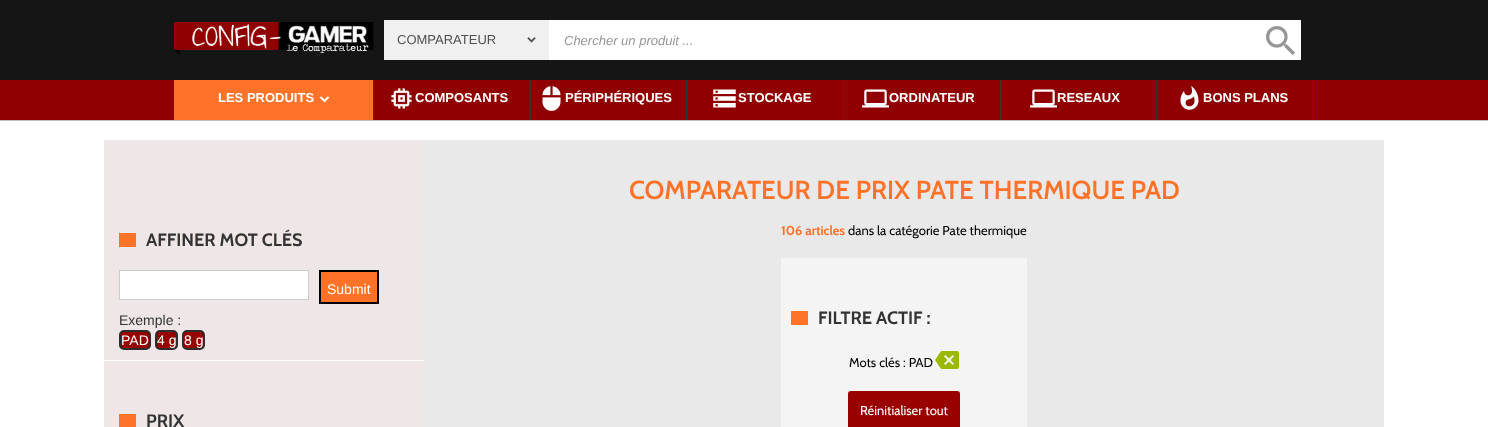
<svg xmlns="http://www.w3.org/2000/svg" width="1488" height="427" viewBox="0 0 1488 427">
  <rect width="100%" height="100%" fill="rgb(255,255,255)"/>
  <rect x="0" y="1" width="1488" height="120" fill="rgba(0,0,0,0.25)" filter="blur(0.5px)"/>
  <rect x="0" y="0" width="1488" height="80" fill="rgb(21,21,21)"/>
  <image x="174" y="22" width="200" height="33" href="pic1.png"/>
  <rect x="384" y="20" width="165" height="40" fill="rgb(240,240,240)"/>
  <text x="397" y="44" font-family="Liberation Sans" font-size="13" fill="rgb(80,80,80)">COMPARATEUR</text>
  <image x="527" y="37" width="9" height="6" href="pic2.png"/>
  <rect x="549" y="20" width="752" height="40" fill="rgb(255,255,255)"/>
  <text x="564" y="45" font-family="Liberation Sans" font-size="13" font-style="italic" fill="rgb(150,150,150)">Chercher un produit ...</text>
  <image x="1266" y="26" width="29" height="29" href="pic3.png"/>
  <rect x="0" y="80" width="1488" height="40" fill="rgb(144,0,0)"/>
  <rect x="174" y="80" width="199" height="40" fill="rgb(255,114,39)"/>
  <rect x="373" y="80" width="1" height="40" fill="rgb(51,51,51)"/>
  <text x="218" y="102" font-family="Liberation Sans" font-size="13" font-weight="bold" fill="rgb(255,255,255)">LES PRODUITS</text>
  <image x="319" y="96" width="11" height="7" href="pic4.png"/>
  <rect x="530" y="80" width="1" height="40" fill="rgb(51,51,51)"/>
  <image x="391" y="88" width="21" height="21" href="pic5.png"/>
  <text x="415" y="102" font-family="Liberation Sans" font-size="13" font-weight="bold" fill="rgb(255,255,255)">COMPOSANTS</text>
  <rect x="686" y="80" width="1" height="40" fill="rgb(51,51,51)"/>
  <image x="542" y="86" width="19" height="25" href="pic6.png"/>
  <text x="565" y="102" font-family="Liberation Sans" font-size="13" font-weight="bold" fill="rgb(255,255,255)">PÉRIPHÉRIQUES</text>
  <rect x="843" y="80" width="1" height="40" fill="rgb(51,51,51)"/>
  <image x="713" y="89" width="23" height="19" href="pic7.png"/>
  <text x="738" y="102" font-family="Liberation Sans" font-size="13" font-weight="bold" fill="rgb(255,255,255)">STOCKAGE</text>
  <rect x="1000" y="80" width="1" height="40" fill="rgb(51,51,51)"/>
  <image x="862" y="89" width="27" height="19" href="pic8.png"/>
  <text x="889" y="102" font-family="Liberation Sans" font-size="13" font-weight="bold" fill="rgb(255,255,255)">ORDINATEUR</text>
  <rect x="1156" y="80" width="1" height="40" fill="rgb(51,51,51)"/>
  <image x="1030" y="89" width="27" height="19" href="pic8.png"/>
  <text x="1057" y="102" font-family="Liberation Sans" font-size="13" font-weight="bold" fill="rgb(255,255,255)">RESEAUX</text>
  <rect x="1313" y="80" width="1" height="40" fill="rgb(51,51,51)"/>
  <image x="1180" y="85" width="19" height="25" href="pic9.png"/>
  <text x="1203" y="102" font-family="Liberation Sans" font-size="13" font-weight="bold" fill="rgb(255,255,255)">BONS PLANS</text>
  <rect x="424" y="140" width="960" height="287" fill="rgb(233,233,233)"/>
  <rect x="104" y="140" width="320" height="220" fill="rgb(239,231,231)"/>
  <rect x="119" y="233" width="17" height="14" fill="rgb(255,114,39)"/>
  <text x="146" y="246" font-family="Cabin" font-size="18" font-weight="bold" fill="rgb(51,51,51)">AFFINER MOT CLÉS</text>
  <rect x="119.5" y="270.5" width="189" height="29" fill="rgb(255,255,255)" stroke="rgb(204,204,204)"/>
  <rect x="320" y="271" width="58" height="32" fill="rgb(255,114,39)" stroke="rgb(0,0,0)" stroke-width="2"/>
  <text x="327" y="294" font-family="Liberation Sans" font-size="14" fill="rgb(255,255,255)">Submit</text>
  <text x="119" y="325" font-family="Liberation Sans" font-size="14" fill="rgb(51,51,51)">Exemple :</text>
  <rect x="120" y="331" width="30" height="18" rx="4" fill="rgb(153,0,0)" stroke="rgb(45,45,45)" stroke-width="2"/>
  <text x="121" y="345" font-family="Liberation Sans" font-size="14" fill="rgb(255,255,255)">PAD</text>
  <rect x="156" y="331" width="21" height="18" rx="4" fill="rgb(153,0,0)" stroke="rgb(45,45,45)" stroke-width="2"/>
  <text x="157" y="345" font-family="Liberation Sans" font-size="14" fill="rgb(255,255,255)">4 g</text>
  <rect x="183" y="331" width="21" height="18" rx="4" fill="rgb(153,0,0)" stroke="rgb(45,45,45)" stroke-width="2"/>
  <text x="184" y="345" font-family="Liberation Sans" font-size="14" fill="rgb(255,255,255)">8 g</text>
  <rect x="104" y="361" width="320" height="66" fill="rgb(239,231,231)"/>
  <rect x="119" y="414" width="17" height="13" fill="rgb(255,114,39)"/>
  <text x="146" y="427" font-family="Cabin" font-size="18" font-weight="bold" fill="rgb(51,51,51)">PRIX</text>
  <text x="629" y="199" font-family="Cabin" font-size="26" font-weight="600" fill="rgb(255,114,39)">COMPARATEUR DE PRIX PATE THERMIQUE PAD</text>
  <text x="781" y="235" font-family="Cabin" font-size="13" font-weight="bold" fill="rgb(255,114,39)">106 articles</text>
  <text x="848" y="235" font-family="Cabin" font-size="13" fill="rgb(0,0,0)">dans la catégorie Pate thermique</text>
  <rect x="781" y="258" width="246" height="169" fill="rgb(244,244,244)"/>
  <rect x="791" y="311" width="17" height="14" fill="rgb(255,114,39)"/>
  <text x="818" y="324" font-family="Cabin" font-size="18" font-weight="bold" fill="rgb(51,51,51)">FILTRE ACTIF :</text>
  <text x="849" y="367" font-family="Cabin" font-size="13" fill="rgb(0,0,0)">Mots clés : PAD</text>
  <image x="935" y="351" width="24" height="18" href="pic10.png"/>
  <rect x="848" y="391" width="112" height="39" rx="3" fill="rgb(153,0,0)"/>
  <text x="860" y="415" font-family="Cabin" font-size="13" fill="rgb(255,255,255)">Réinitialiser tout</text>
</svg>
